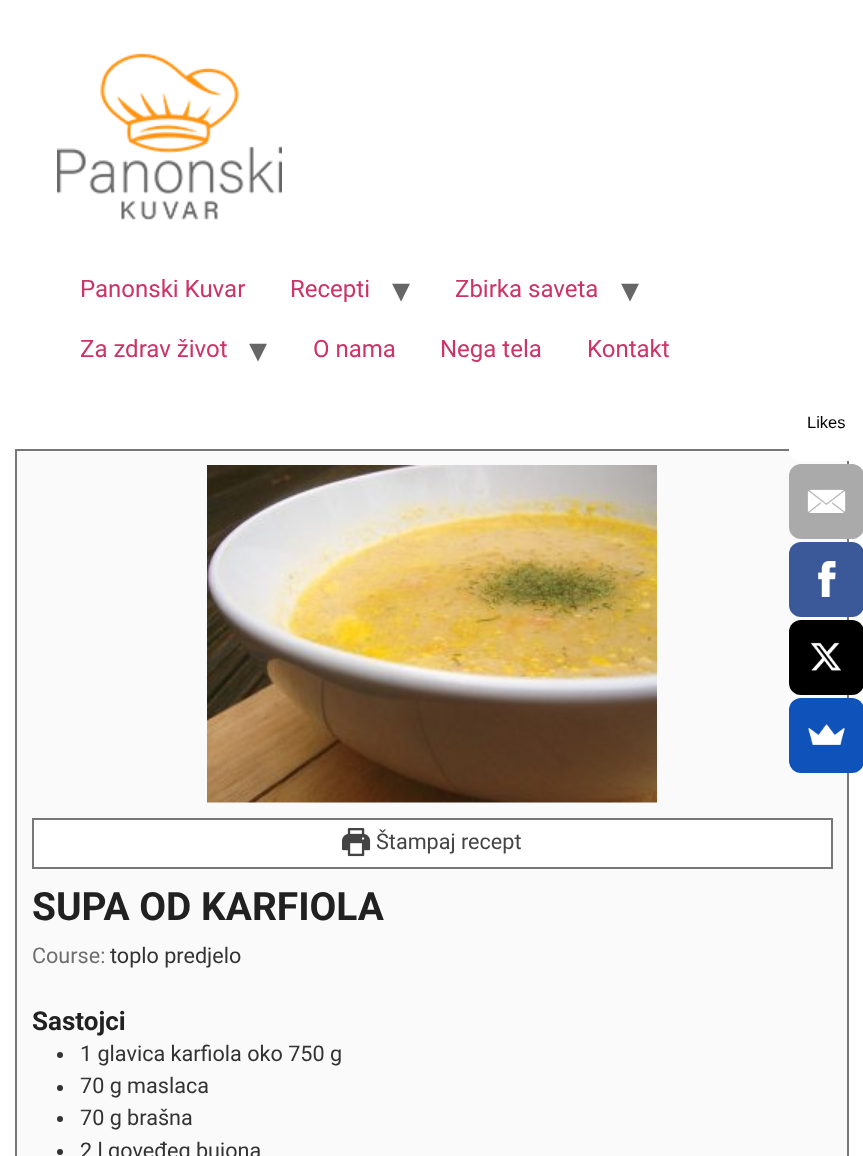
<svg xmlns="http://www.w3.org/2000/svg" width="863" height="1156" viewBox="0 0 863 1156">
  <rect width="100%" height="100%" fill="rgb(255,255,255)"/>
  <image x="57" y="53" width="225" height="167" href="pic1.png"/>
  <g font-family="Roboto" font-size="24" fill="rgb(204,51,102)">
    <text x="80" y="297">Panonski Kuvar</text>
    <text x="290" y="297">Recepti</text>
  </g>
  <text x="392" y="302" font-family="DejaVu Sans" font-size="36" fill="rgb(102,102,102)">▾</text>
  <text x="455" y="297" font-family="Roboto" font-size="24" fill="rgb(204,51,102)">Zbirka saveta</text>
  <text x="621" y="302" font-family="DejaVu Sans" font-size="36" fill="rgb(102,102,102)">▾</text>
  <text x="80" y="357" font-family="Roboto" font-size="24" fill="rgb(204,51,102)">Za zdrav život</text>
  <text x="249" y="362" font-family="DejaVu Sans" font-size="36" fill="rgb(102,102,102)">▾</text>
  <g font-family="Roboto" font-size="24" fill="rgb(204,51,102)">
    <text x="313" y="357">O nama</text>
    <text x="440" y="357">Nega tela</text>
    <text x="587" y="357">Kontakt</text>
  </g>
  <rect x="16" y="450" width="832" height="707" fill="rgb(250,250,250)" stroke="rgb(119,119,119)" stroke-width="2"/>
  <rect x="789" y="386" width="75" height="75" rx="12" fill="rgb(255,255,255)"/>
  <text x="807" y="428" font-family="Liberation Sans" font-size="16.5" fill="rgb(0,0,0)">Likes</text>
  <rect x="789" y="464" width="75" height="75" rx="12" fill="rgb(170,170,170)"/>
  <image x="807" y="489" width="39" height="24" href="pic2.png"/>
  <rect x="789" y="542" width="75" height="75" rx="12" fill="rgb(59,89,152)"/>
  <image x="818" y="561" width="18" height="36" href="pic3.png"/>
  <rect x="789" y="620" width="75" height="75" rx="12" fill="rgb(0,0,0)"/>
  <image x="810" y="642" width="31" height="29" href="pic4.png"/>
  <rect x="789" y="698" width="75" height="75" rx="12" fill="rgb(15,82,186)"/>
  <image x="808" y="724" width="37" height="21" href="pic5.png"/>
  <image x="207" y="465" width="450" height="338" href="pic6.png"/>
  <rect x="33" y="819" width="799" height="49" fill="rgb(255,255,255)" stroke="rgb(119,119,119)" stroke-width="2"/>
  <image x="342" y="828" width="29" height="29" href="pic7.png"/>
  <text x="376" y="849" font-family="Roboto" font-size="21.6" fill="rgb(68,68,68)">Štampaj recept</text>
  <text x="32" y="920" font-family="Roboto" font-size="38.9" font-weight="bold" fill="rgb(33,33,33)">SUPA OD KARFIOLA</text>
  <text x="32" y="963" font-family="Roboto" font-size="21.6" fill="rgb(111,111,111)">Course:</text>
  <text x="110" y="963" font-family="Roboto" font-size="21.6" fill="rgb(51,51,51)">toplo predjelo</text>
  <text x="32" y="1030" font-family="Roboto" font-size="26" font-weight="bold" fill="rgb(33,33,33)">Sastojci</text>
  <circle cx="60" cy="1055" r="3" fill="rgb(51,51,51)"/>
  <text x="80" y="1061" font-family="Roboto" font-size="21.6" fill="rgb(51,51,51)">1 glavica karfiola oko 750 g</text>
  <circle cx="60" cy="1088" r="3" fill="rgb(51,51,51)"/>
  <text x="80" y="1093" font-family="Roboto" font-size="21.6" fill="rgb(51,51,51)">70 g maslaca</text>
  <circle cx="60" cy="1119" r="3" fill="rgb(51,51,51)"/>
  <text x="80" y="1125" font-family="Roboto" font-size="21.6" fill="rgb(51,51,51)">70 g brašna</text>
  <circle cx="60" cy="1152" r="3" fill="rgb(51,51,51)"/>
  <text x="80" y="1158" font-family="Roboto" font-size="21.6" fill="rgb(51,51,51)">2 l goveđeg bujona</text>
</svg>
